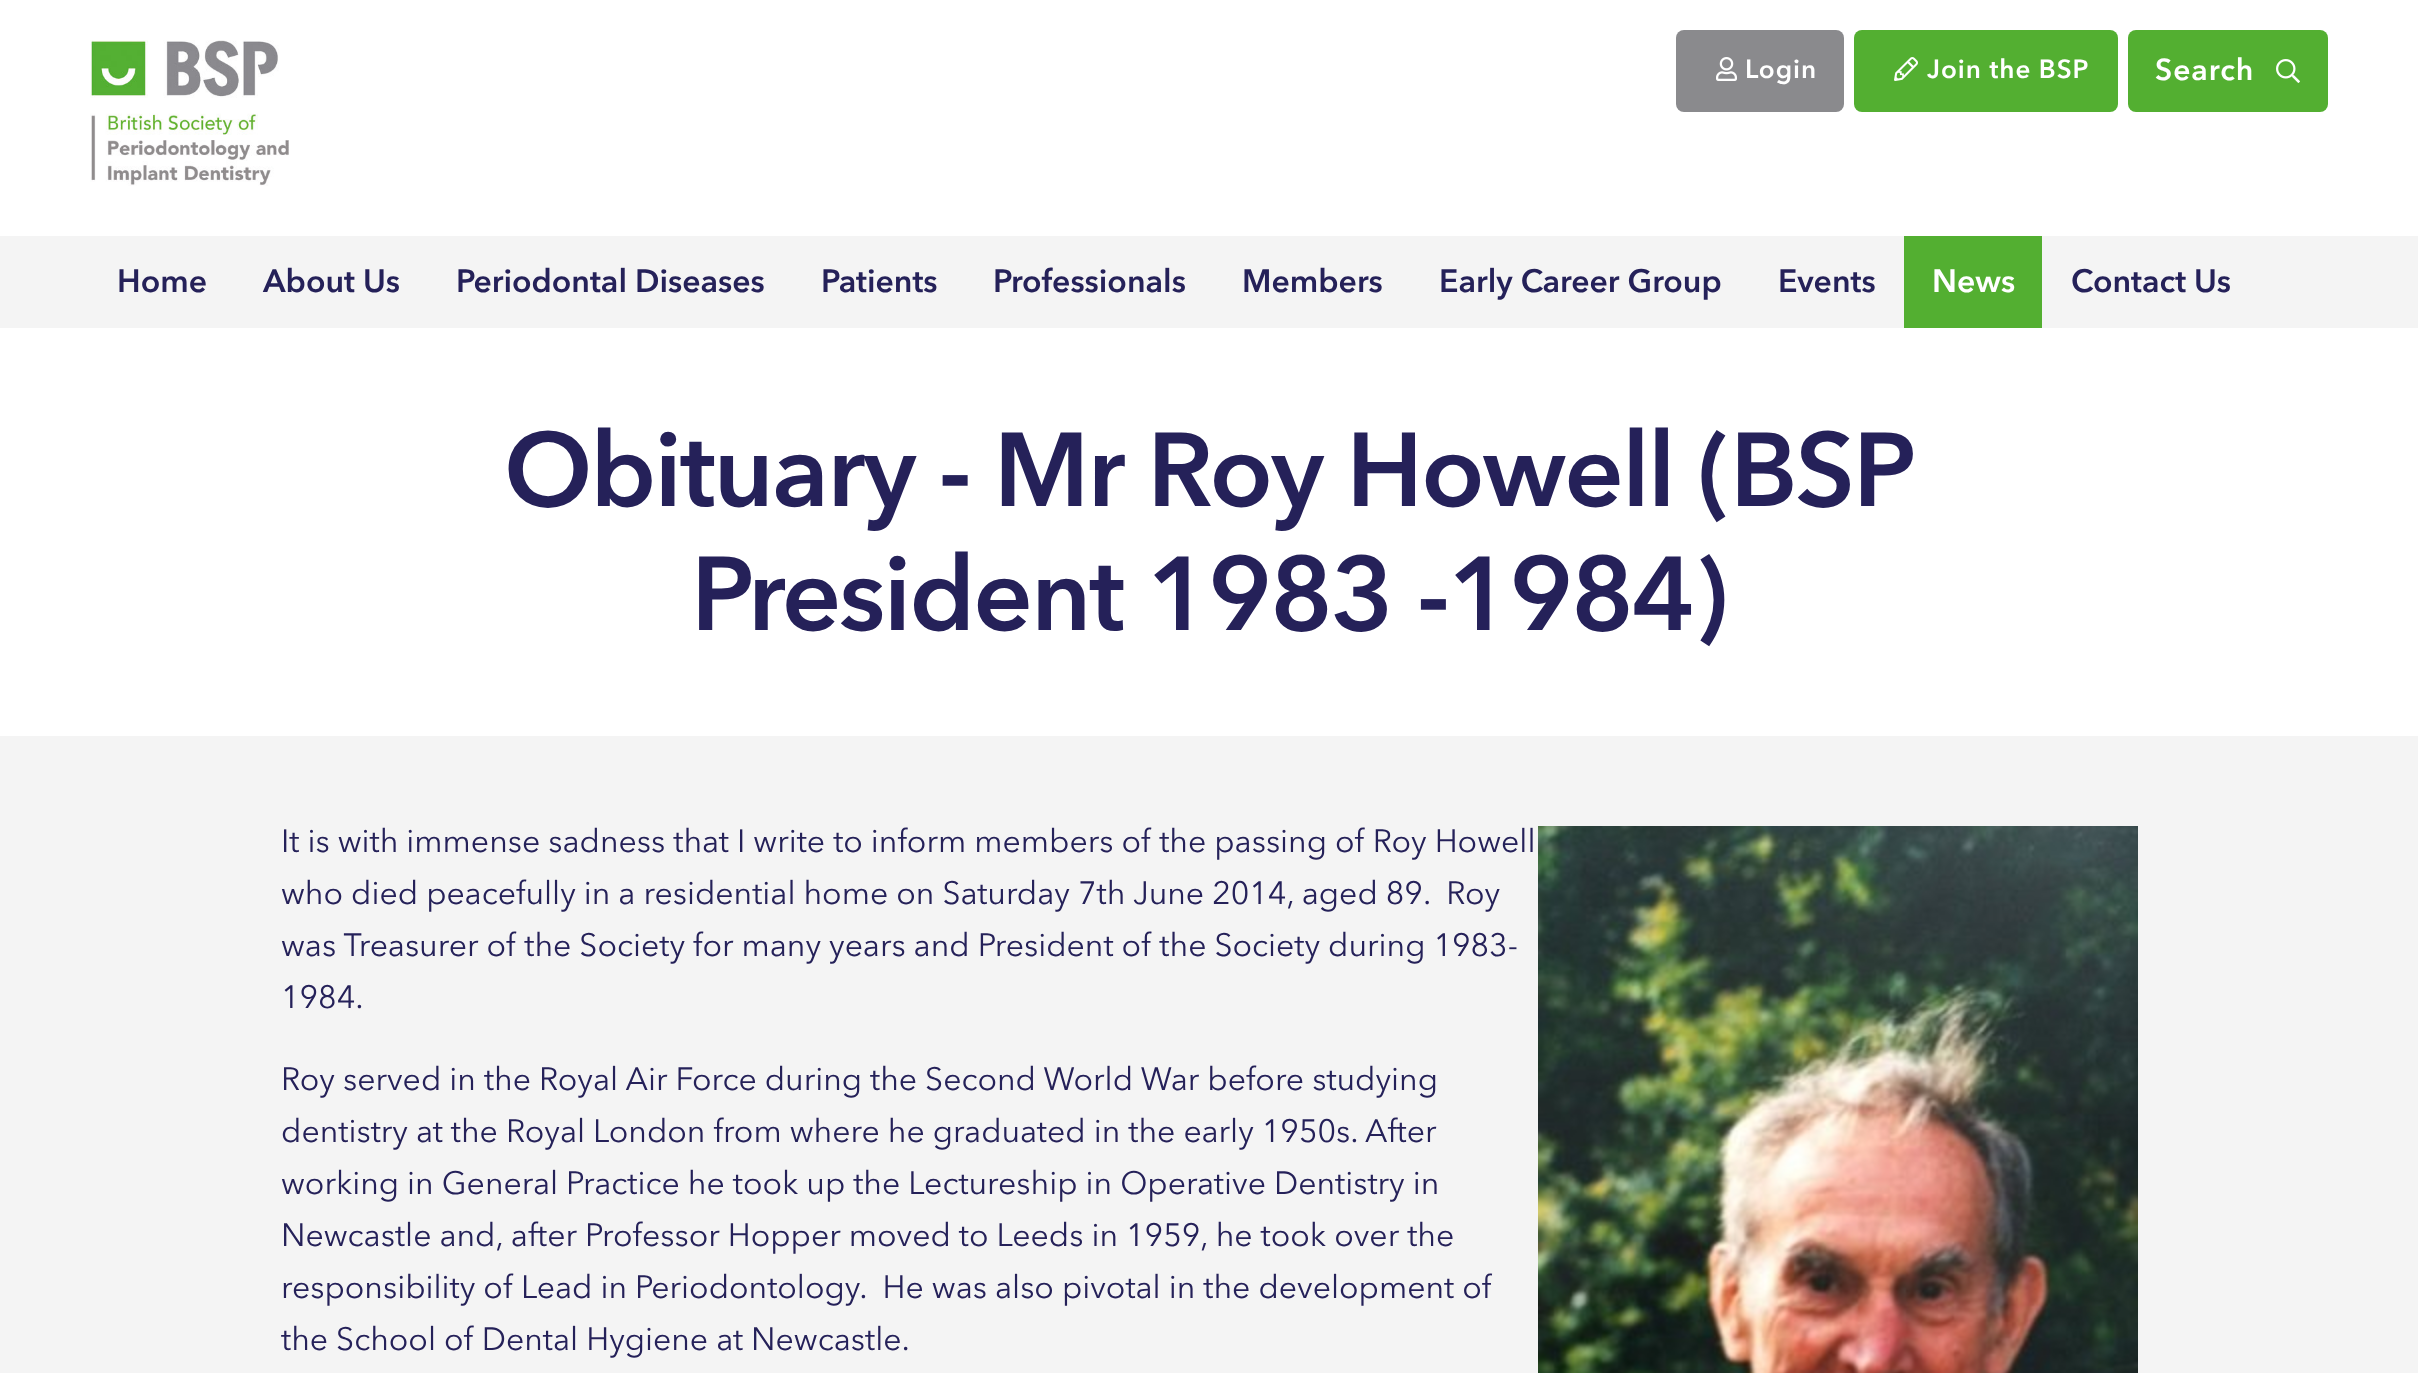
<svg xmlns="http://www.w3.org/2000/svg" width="2418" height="1373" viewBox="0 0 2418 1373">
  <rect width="100%" height="100%" fill="rgb(255,255,255)"/>
  <image x="90" y="40" width="199" height="146" href="pic1.png"/>
  <rect x="1676" y="30" width="168" height="82" rx="8" fill="rgb(138,138,141)"/>
  <image x="1716" y="57" width="21" height="24" href="pic2.png"/>
  <text x="1745" y="78" font-family="Avenir Next" font-size="26" font-weight="bold" letter-spacing="1" fill="rgb(255,255,255)">Login</text>
  <rect x="1854" y="30" width="264" height="82" rx="8" fill="rgb(83,175,49)"/>
  <image x="1894" y="57" width="24" height="24" href="pic3.png"/>
  <text x="1927" y="78" font-family="Avenir Next" font-size="26" font-weight="bold" letter-spacing="1" fill="rgb(255,255,255)">Join the BSP</text>
  <rect x="2128" y="30" width="200" height="82" rx="8" fill="rgb(83,175,49)"/>
  <text x="2155" y="80" font-family="Avenir Next" font-size="30" font-weight="bold" letter-spacing="1" fill="rgb(255,255,255)">Search</text>
  <image x="2276" y="59" width="24" height="24" href="pic4.png"/>
  <rect x="0" y="236" width="2418" height="92" fill="rgb(244,244,244)"/>
  <g font-family="Avenir Next" font-size="32" font-weight="bold" fill="rgb(37,33,89)">
    <text x="117" y="292">Home</text>
    <text x="263" y="292">About Us</text>
    <text x="456" y="292">Periodontal Diseases</text>
    <text x="821" y="292">Patients</text>
    <text x="993" y="292">Professionals</text>
    <text x="1242" y="292">Members</text>
    <text x="1439" y="292">Early Career Group</text>
    <text x="1778" y="292">Events</text>
  </g>
  <rect x="1904" y="236" width="138" height="92" fill="rgb(83,175,49)"/>
  <text x="1932" y="292" font-family="Avenir Next" font-size="32" font-weight="bold" fill="rgb(255,255,255)">News</text>
  <text x="2071" y="292" font-family="Avenir Next" font-size="32" font-weight="bold" fill="rgb(37,33,89)">Contact Us</text>
  <rect x="0" y="736" width="2418" height="637" fill="rgb(244,244,244)"/>
  <g font-family="Avenir Next" font-size="104" font-weight="bold" letter-spacing="-2" fill="rgb(37,33,89)">
    <text x="504" y="506">Obituary - Mr Roy Howell (BSP</text>
    <text x="691" y="630">President 1983 -1984)</text>
  </g>
  <text x="281" y="852" font-family="'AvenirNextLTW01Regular'" font-size="32" fill="rgb(37,33,89)">It is with immense sadness that I write to inform members of the passing of Roy Howell</text>
  <image x="1538" y="826" width="600" height="547" href="pic5.png"/>
  <g font-family="'AvenirNextLTW01Regular'" font-size="32" fill="rgb(37,33,89)">
    <text xml:space="preserve"><tspan x="281" y="904">who died peacefully in a residential home on Saturday 7th June 2014, aged 89.  Roy</tspan><tspan x="281" y="956">was Treasurer of the Society for many years and President of the Society during 1983-</tspan><tspan x="281" y="1008">1984.</tspan></text>
    <text xml:space="preserve"><tspan x="281" y="1090">Roy served in the Royal Air Force during the Second World War before studying</tspan><tspan x="281" y="1142">dentistry at the Royal London from where he graduated in the early 1950s. After</tspan><tspan x="281" y="1194">working in General Practice he took up the Lectureship in Operative Dentistry in</tspan><tspan x="281" y="1246">Newcastle and, after Professor Hopper moved to Leeds in 1959, he took over the</tspan><tspan x="281" y="1298">responsibility of Lead in Periodontology.  He was also pivotal in the development of</tspan><tspan x="281" y="1350">the School of Dental Hygiene at Newcastle.</tspan></text>
  </g>
</svg>
